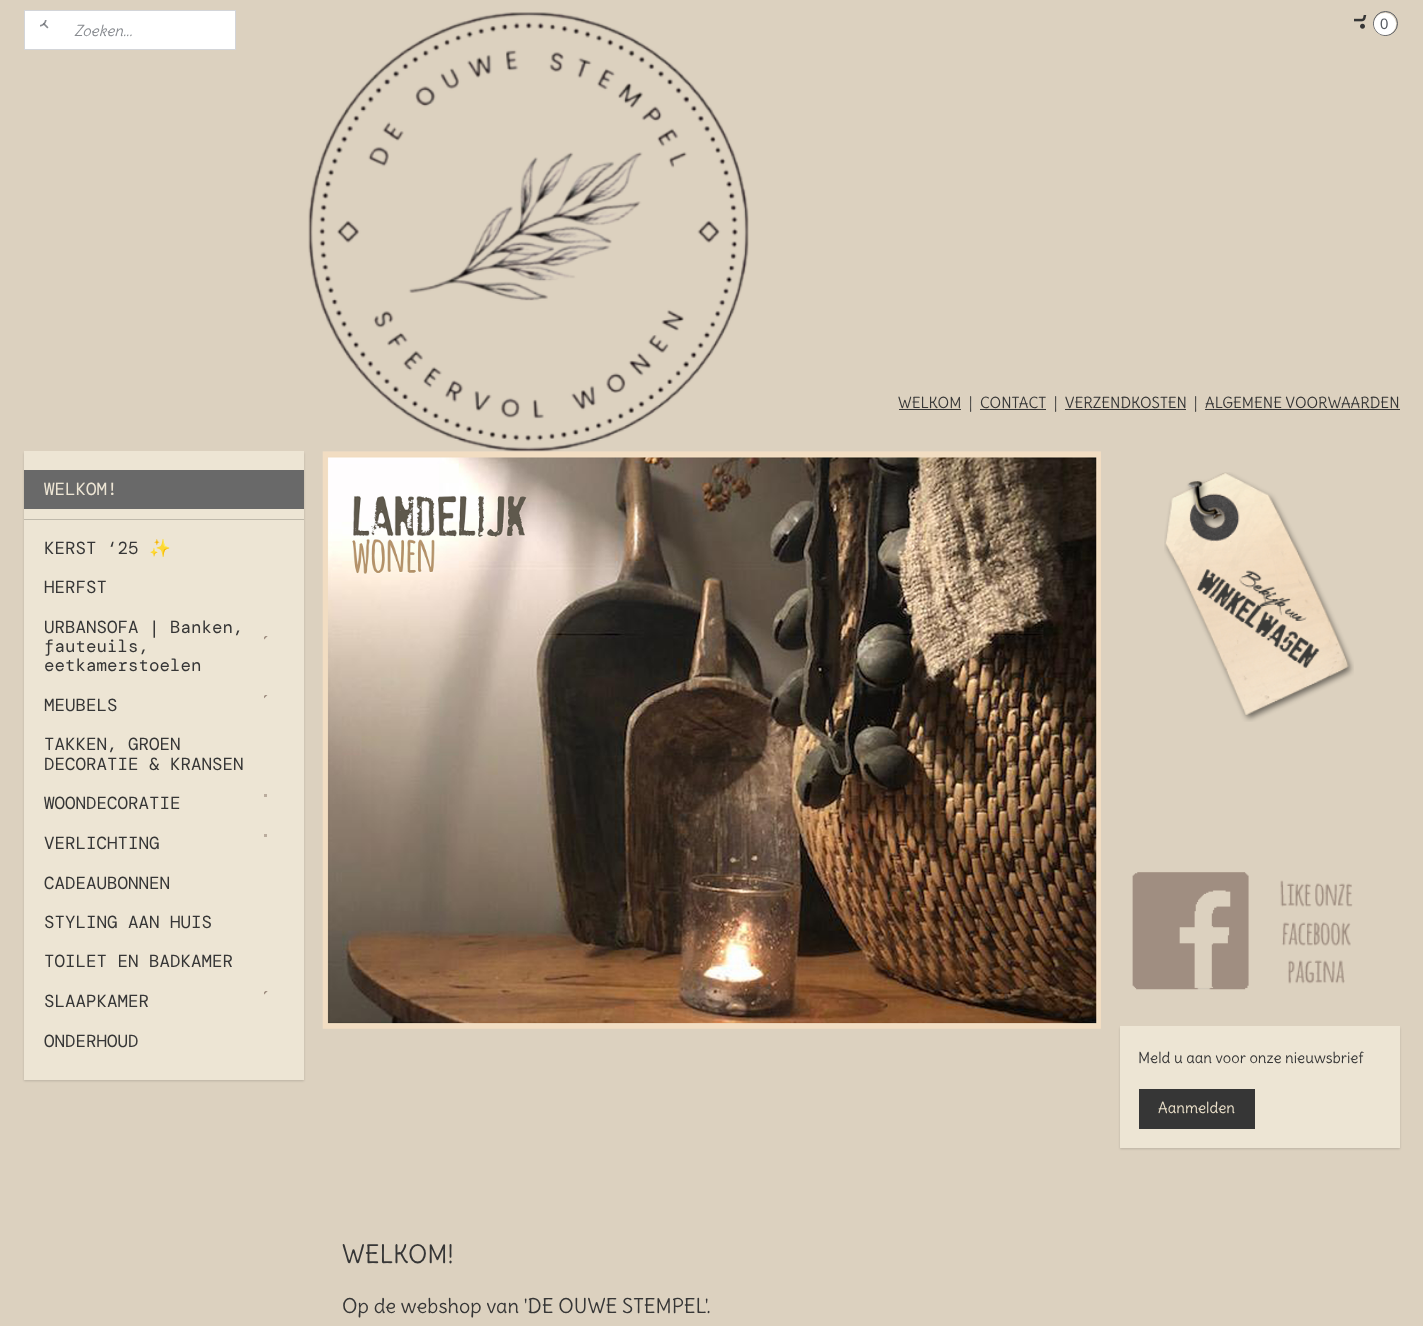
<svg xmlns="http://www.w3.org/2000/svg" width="1423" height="1326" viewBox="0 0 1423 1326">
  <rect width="100%" height="100%" fill="rgb(255,255,255)"/>
  <image x="0" y="0" width="1423" height="1326" href="pic1.png"/>
  <rect x="24.5" y="10.5" width="211" height="39" fill="rgb(255,255,255)" stroke="rgb(211,213,217)"/>
  <image x="40" y="20" width="9" height="9" href="pic2.png"/>
  <text x="74" y="36" font-family="Delius" font-size="15" font-style="italic" fill="rgb(137,140,145)">Zoeken...</text>
  <image x="1354" y="15" width="13" height="14" href="pic3.png"/>
  <circle cx="1385.5" cy="23.5" r="12" fill="none" stroke="rgb(87,91,98)"/>
  <circle cx="1385" cy="24" r="11" fill="rgb(255,255,255)"/>
  <text x="1380" y="29" font-family="Liberation Sans" font-size="15" fill="rgb(87,91,98)">0</text>
  <text x="898" y="408" font-family="Delius" font-size="15" fill="rgb(54,54,54)">WELKOM</text>
  <rect x="899" y="409" width="62" height="1" fill="rgb(54,54,54)"/>
  <g font-family="Delius" font-size="15" fill="rgb(54,54,54)">
    <text x="969" y="408">|</text>
    <text x="980" y="408">CONTACT</text>
  </g>
  <rect x="980" y="409" width="66" height="1" fill="rgb(54,54,54)"/>
  <g font-family="Delius" font-size="15" fill="rgb(54,54,54)">
    <text x="1054" y="408">|</text>
    <text x="1065" y="408">VERZENDKOSTEN</text>
  </g>
  <rect x="1065" y="409" width="121" height="1" fill="rgb(54,54,54)"/>
  <g font-family="Delius" font-size="15" fill="rgb(54,54,54)">
    <text x="1194" y="408">|</text>
    <text x="1205" y="408">ALGEMENE VOORWAARDEN</text>
  </g>
  <rect x="1205" y="409" width="195" height="1" fill="rgb(54,54,54)"/>
  <rect x="24" y="453" width="280" height="628" fill="rgba(0,0,0,0.15)" filter="blur(1px)"/>
  <rect x="24" y="451" width="280" height="629" fill="rgb(237,229,212)"/>
  <rect x="24" y="470" width="280" height="39" fill="rgb(105,105,105)"/>
  <text x="44" y="495" font-family="DM Mono" font-size="17.5" fill="rgb(237,229,212)">WELKOM!</text>
  <rect x="24" y="519" width="280" height="1" fill="rgb(191,185,171)"/>
  <text x="44" y="554" font-family="DM Mono" font-size="17.5" fill="rgb(54,54,54)">KERST ‘25</text>
  <text x="149" y="554" font-family="Noto Color Emoji" font-size="17.5" fill="rgb(54,54,54)">✨</text>
  <g font-family="DM Mono" font-size="17.5" fill="rgb(54,54,54)">
    <text x="44" y="593">HERFST</text>
    <text x="44" y="633">URBANSOFA | Banken,</text>
  </g>
  <image x="264" y="636" width="4" height="4" href="pic4.png"/>
  <g font-family="DM Mono" font-size="17.5" fill="rgb(54,54,54)">
    <text>
      <tspan x="44" y="652">fauteuils,</tspan>
      <tspan x="44" y="671">eetkamerstoelen</tspan>
    </text>
  </g>
  <image x="264" y="695" width="4" height="4" href="pic5.png"/>
  <g font-family="DM Mono" font-size="17.5" fill="rgb(54,54,54)">
    <text x="44" y="711">MEUBELS</text>
    <text>
      <tspan x="44" y="750">TAKKEN, GROEN</tspan>
      <tspan x="44" y="770">DECORATIE &amp; KRANSEN</tspan>
    </text>
  </g>
  <rect x="264" y="794" width="3" height="3" fill="rgb(186,172,157)"/>
  <text x="44" y="809" font-family="DM Mono" font-size="17.5" fill="rgb(54,54,54)">WOONDECORATIE</text>
  <rect x="264" y="834" width="3" height="3" fill="rgb(186,172,157)"/>
  <g font-family="DM Mono" font-size="17.5" fill="rgb(54,54,54)">
    <text x="44" y="849">VERLICHTING</text>
    <text x="44" y="889">CADEAUBONNEN</text>
    <text x="44" y="928">STYLING AAN HUIS</text>
    <text x="44" y="967">TOILET EN BADKAMER</text>
  </g>
  <image x="264" y="991" width="4" height="4" href="pic4.png"/>
  <g font-family="DM Mono" font-size="17.5" fill="rgb(54,54,54)">
    <text x="44" y="1007">SLAAPKAMER</text>
    <text x="44" y="1047">ONDERHOUD</text>
  </g>
  <image x="1164" y="472" width="190" height="250" href="pic6.png"/>
  <image x="1132" y="872" width="221" height="118" href="pic7.png"/>
  <rect x="1120" y="1028" width="280" height="121" fill="rgba(0,0,0,0.15)" filter="blur(1px)"/>
  <rect x="1120" y="1026" width="280" height="122" fill="rgb(237,229,212)"/>
  <text x="1138" y="1063" font-family="Delius" font-size="15" fill="rgb(54,54,54)">Meld u aan voor onze nieuwsbrief</text>
  <rect x="1139" y="1089" width="116" height="40" fill="rgb(54,54,54)"/>
  <text x="1158" y="1113" font-family="Delius" font-size="15" fill="rgb(237,226,203)">Aanmelden</text>
  <image x="322" y="451" width="779" height="578" href="pic8.png"/>
  <text x="342" y="1263" font-family="Delius" font-size="25" fill="rgb(54,54,54)">WELKOM!</text>
  <text x="342" y="1313" font-family="Delius" font-size="20" fill="rgb(54,54,54)">Op de webshop van 'DE OUWE STEMPEL'.</text>
</svg>
